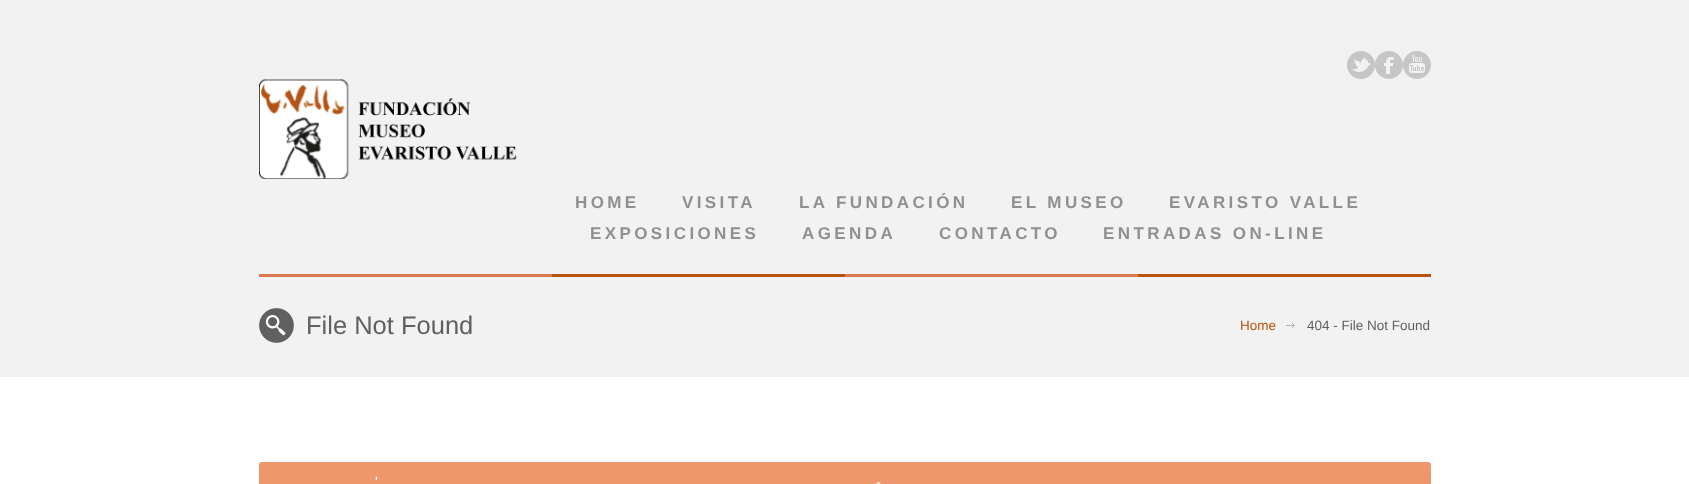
<svg xmlns="http://www.w3.org/2000/svg" width="1689" height="484" viewBox="0 0 1689 484">
  <rect width="100%" height="100%" fill="rgb(255,255,255)"/>
  <rect x="0" y="0" width="1689" height="377" fill="rgb(242,242,242)"/>
  <image x="1347" y="51" width="28" height="28" href="pic1.png"/>
  <image x="1375" y="51" width="28" height="28" href="pic2.png"/>
  <image x="1403" y="51" width="28" height="28" href="pic3.png"/>
  <image x="259" y="79" width="258" height="100" href="pic4.png"/>
  <g font-family="Liberation Sans" font-size="17" font-weight="bold" letter-spacing="3.4" fill="rgb(144,144,144)">
    <text x="575" y="208">HOME</text>
    <text x="682" y="208">VISITA</text>
    <text x="799" y="208">LA FUNDACIÓN</text>
    <text x="1011" y="208">EL MUSEO</text>
    <text x="1169" y="208">EVARISTO VALLE</text>
    <text x="590" y="239">EXPOSICIONES</text>
    <text x="802" y="239">AGENDA</text>
    <text x="939" y="239">CONTACTO</text>
    <text x="1103" y="239">ENTRADAS ON-LINE</text>
  </g>
  <rect x="259" y="274" width="293" height="3" fill="rgb(219,120,80)"/>
  <rect x="552" y="274" width="293" height="3" fill="rgb(181,84,14)"/>
  <rect x="845" y="274" width="293" height="3" fill="rgb(219,120,80)"/>
  <rect x="1138" y="274" width="293" height="3" fill="rgb(181,84,14)"/>
  <image x="259" y="308" width="35" height="35" href="pic5.png"/>
  <text x="306" y="334" font-family="Liberation Sans" font-size="25.5" fill="rgb(96,96,96)">File Not Found</text>
  <text x="1240" y="330" font-family="Liberation Sans" font-size="13.5" fill="rgb(181,84,14)">Home</text>
  <image x="1286" y="323" width="9" height="5" href="pic6.png"/>
  <text x="1307" y="330" font-family="Liberation Sans" font-size="13.5" fill="rgb(96,96,96)">404 - File Not Found</text>
  <rect x="259" y="462" width="1172" height="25" rx="3" fill="rgb(238,151,108)"/>
  <g font-family="Liberation Sans" font-size="15" fill="rgb(255,255,255)">
    <text x="375" y="487">'</text>
    <text x="876" y="487">-</text>
  </g>
</svg>
